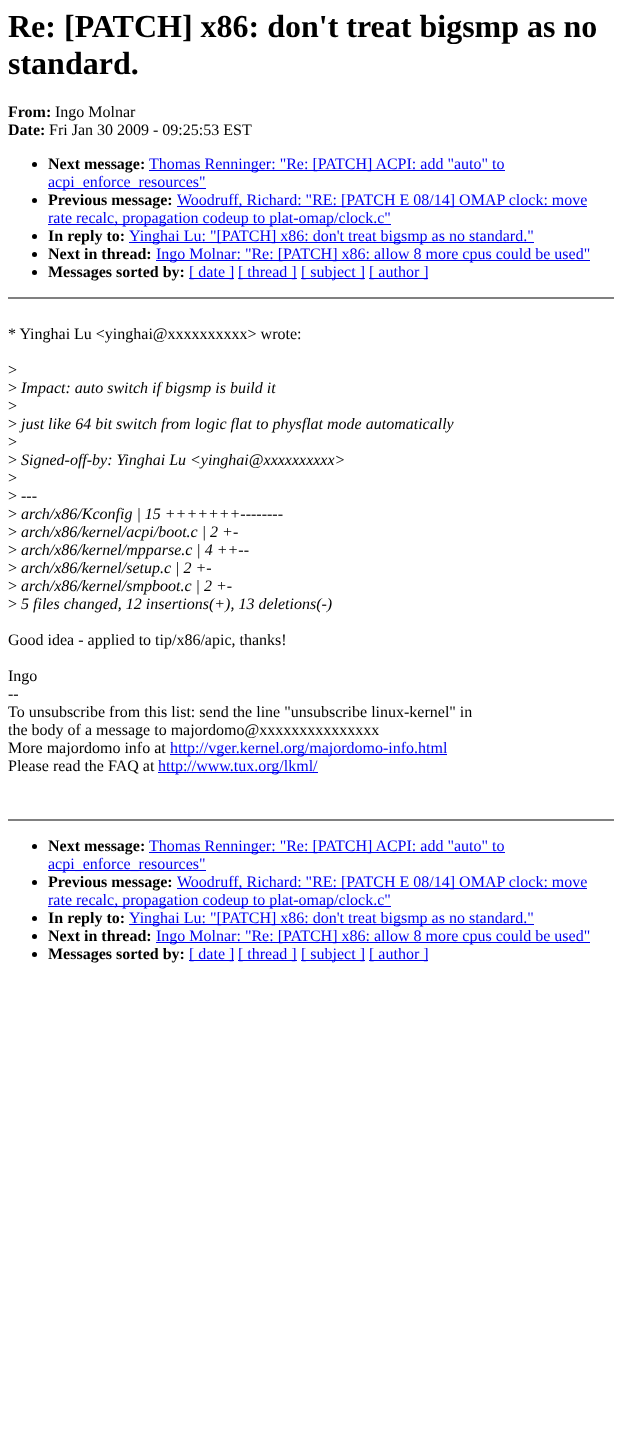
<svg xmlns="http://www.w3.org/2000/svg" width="622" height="1438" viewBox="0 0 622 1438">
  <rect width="100%" height="100%" fill="rgb(255,255,255)"/>
  <g font-family="Liberation Serif" font-size="32" font-weight="bold" fill="rgb(0,0,0)">
    <text>
      <tspan x="8" y="37">Re: [PATCH] x86: don't treat bigsmp as no</tspan>
      <tspan x="8" y="74">standard.</tspan>
    </text>
  </g>
  <text x="8" y="117" font-family="Liberation Serif" font-size="16" font-weight="bold" fill="rgb(0,0,0)">From:</text>
  <text x="55" y="117" font-family="Liberation Serif" font-size="16" fill="rgb(0,0,0)">Ingo Molnar</text>
  <text x="8" y="135" font-family="Liberation Serif" font-size="16" font-weight="bold" fill="rgb(0,0,0)">Date:</text>
  <text x="49" y="135" font-family="Liberation Serif" font-size="16" fill="rgb(0,0,0)">Fri Jan 30 2009 - 09:25:53 EST</text>
  <circle cx="34.5" cy="164.5" r="2.5" fill="rgb(0,0,0)"/>
  <text x="48" y="169" font-family="Liberation Serif" font-size="16" font-weight="bold" fill="rgb(0,0,0)">Next message:</text>
  <rect x="149" y="170" width="356" height="1" fill="rgb(0,0,238)"/>
  <text x="149" y="169" font-family="Liberation Serif" font-size="16" fill="rgb(0,0,238)">Thomas Renninger: "Re: [PATCH] ACPI: add "auto" to</text>
  <rect x="48" y="188" width="158" height="1" fill="rgb(0,0,238)"/>
  <text x="48" y="187" font-family="Liberation Serif" font-size="16" fill="rgb(0,0,238)">acpi_enforce_resources"</text>
  <circle cx="34.5" cy="200.5" r="2.5" fill="rgb(0,0,0)"/>
  <text x="48" y="205" font-family="Liberation Serif" font-size="16" font-weight="bold" fill="rgb(0,0,0)">Previous message:</text>
  <rect x="177" y="206" width="410" height="1" fill="rgb(0,0,238)"/>
  <text x="177" y="205" font-family="Liberation Serif" font-size="16" fill="rgb(0,0,238)">Woodruff, Richard: "RE: [PATCH E 08/14] OMAP clock: move</text>
  <rect x="48" y="224" width="343" height="1" fill="rgb(0,0,238)"/>
  <text x="48" y="223" font-family="Liberation Serif" font-size="16" fill="rgb(0,0,238)">rate recalc, propagation codeup to plat-omap/clock.c"</text>
  <circle cx="34.5" cy="236.5" r="2.5" fill="rgb(0,0,0)"/>
  <text x="48" y="241" font-family="Liberation Serif" font-size="16" font-weight="bold" fill="rgb(0,0,0)">In reply to:</text>
  <rect x="129" y="242" width="405" height="1" fill="rgb(0,0,238)"/>
  <text x="129" y="241" font-family="Liberation Serif" font-size="16" fill="rgb(0,0,238)">Yinghai Lu: "[PATCH] x86: don't treat bigsmp as no standard."</text>
  <circle cx="34.5" cy="254.5" r="2.5" fill="rgb(0,0,0)"/>
  <text x="48" y="259" font-family="Liberation Serif" font-size="16" font-weight="bold" fill="rgb(0,0,0)">Next in thread:</text>
  <rect x="156" y="260" width="434" height="1" fill="rgb(0,0,238)"/>
  <text x="156" y="259" font-family="Liberation Serif" font-size="16" fill="rgb(0,0,238)">Ingo Molnar: "Re: [PATCH] x86: allow 8 more cpus could be used"</text>
  <circle cx="34.5" cy="272.5" r="2.5" fill="rgb(0,0,0)"/>
  <text x="48" y="277" font-family="Liberation Serif" font-size="16" font-weight="bold" fill="rgb(0,0,0)">Messages sorted by:</text>
  <rect x="189" y="278" width="45" height="1" fill="rgb(0,0,238)"/>
  <text x="189" y="277" font-family="Liberation Serif" font-size="16" fill="rgb(0,0,238)">[ date ]</text>
  <rect x="238" y="278" width="59" height="1" fill="rgb(0,0,238)"/>
  <text x="238" y="277" font-family="Liberation Serif" font-size="16" fill="rgb(0,0,238)">[ thread ]</text>
  <rect x="301" y="278" width="64" height="1" fill="rgb(0,0,238)"/>
  <text x="301" y="277" font-family="Liberation Serif" font-size="16" fill="rgb(0,0,238)">[ subject ]</text>
  <rect x="369" y="278" width="59" height="1" fill="rgb(0,0,238)"/>
  <text x="369" y="277" font-family="Liberation Serif" font-size="16" fill="rgb(0,0,238)">[ author ]</text>
  <rect x="8" y="297" width="606" height="2" fill="rgb(128,128,128)"/>
  <g font-family="Liberation Serif" font-size="16" fill="rgb(0,0,0)">
    <text x="8" y="339">* Yinghai Lu &lt;yinghai@xxxxxxxxxx&gt; wrote:</text>
    <text>
      <tspan x="8" y="375">&gt;</tspan>
      <tspan x="8" y="393">&gt;</tspan>
    </text>
  </g>
  <text x="21" y="393" font-family="Liberation Serif" font-size="16" font-style="italic" fill="rgb(0,0,0)">Impact: auto switch if bigsmp is build it</text>
  <g font-family="Liberation Serif" font-size="16" fill="rgb(0,0,0)">
    <text>
      <tspan x="8" y="411">&gt;</tspan>
      <tspan x="8" y="429">&gt;</tspan>
    </text>
  </g>
  <text x="21" y="429" font-family="Liberation Serif" font-size="16" font-style="italic" fill="rgb(0,0,0)">just like 64 bit switch from logic flat to physflat mode automatically</text>
  <g font-family="Liberation Serif" font-size="16" fill="rgb(0,0,0)">
    <text>
      <tspan x="8" y="447">&gt;</tspan>
      <tspan x="8" y="465">&gt;</tspan>
    </text>
  </g>
  <text x="21" y="465" font-family="Liberation Serif" font-size="16" font-style="italic" fill="rgb(0,0,0)">Signed-off-by: Yinghai Lu &lt;yinghai@xxxxxxxxxx&gt;</text>
  <g font-family="Liberation Serif" font-size="16" fill="rgb(0,0,0)">
    <text>
      <tspan x="8" y="483">&gt;</tspan>
      <tspan x="8" y="501">&gt;</tspan>
    </text>
  </g>
  <text x="21" y="501" font-family="Liberation Serif" font-size="16" font-style="italic" fill="rgb(0,0,0)">---</text>
  <text x="8" y="519" font-family="Liberation Serif" font-size="16" fill="rgb(0,0,0)">&gt;</text>
  <text x="21" y="519" font-family="Liberation Serif" font-size="16" font-style="italic" fill="rgb(0,0,0)">arch/x86/Kconfig | 15 +++++++--------</text>
  <text x="8" y="537" font-family="Liberation Serif" font-size="16" fill="rgb(0,0,0)">&gt;</text>
  <text x="21" y="537" font-family="Liberation Serif" font-size="16" font-style="italic" fill="rgb(0,0,0)">arch/x86/kernel/acpi/boot.c | 2 +-</text>
  <text x="8" y="555" font-family="Liberation Serif" font-size="16" fill="rgb(0,0,0)">&gt;</text>
  <text x="21" y="555" font-family="Liberation Serif" font-size="16" font-style="italic" fill="rgb(0,0,0)">arch/x86/kernel/mpparse.c | 4 ++--</text>
  <text x="8" y="573" font-family="Liberation Serif" font-size="16" fill="rgb(0,0,0)">&gt;</text>
  <text x="21" y="573" font-family="Liberation Serif" font-size="16" font-style="italic" fill="rgb(0,0,0)">arch/x86/kernel/setup.c | 2 +-</text>
  <text x="8" y="591" font-family="Liberation Serif" font-size="16" fill="rgb(0,0,0)">&gt;</text>
  <text x="21" y="591" font-family="Liberation Serif" font-size="16" font-style="italic" fill="rgb(0,0,0)">arch/x86/kernel/smpboot.c | 2 +-</text>
  <text x="8" y="609" font-family="Liberation Serif" font-size="16" fill="rgb(0,0,0)">&gt;</text>
  <text x="21" y="609" font-family="Liberation Serif" font-size="16" font-style="italic" fill="rgb(0,0,0)">5 files changed, 12 insertions(+), 13 deletions(-)</text>
  <g font-family="Liberation Serif" font-size="16" fill="rgb(0,0,0)">
    <text x="8" y="645">Good idea - applied to tip/x86/apic, thanks!</text>
    <text>
      <tspan x="8" y="681">Ingo</tspan>
      <tspan x="8" y="699">--</tspan>
      <tspan x="8" y="717">To unsubscribe from this list: send the line "unsubscribe linux-kernel" in</tspan>
      <tspan x="8" y="735">the body of a message to majordomo@xxxxxxxxxxxxxxx</tspan>
      <tspan x="8" y="753">More majordomo info at</tspan>
    </text>
  </g>
  <rect x="170" y="754" width="277" height="1" fill="rgb(0,0,238)"/>
  <text x="170" y="753" font-family="Liberation Serif" font-size="16" fill="rgb(0,0,238)">http://vger.kernel.org/majordomo-info.html</text>
  <text x="8" y="771" font-family="Liberation Serif" font-size="16" fill="rgb(0,0,0)">Please read the FAQ at</text>
  <rect x="158" y="772" width="160" height="1" fill="rgb(0,0,238)"/>
  <text x="158" y="771" font-family="Liberation Serif" font-size="16" fill="rgb(0,0,238)">http://www.tux.org/lkml/</text>
  <rect x="8" y="819" width="606" height="2" fill="rgb(128,128,128)"/>
  <circle cx="34.5" cy="846.5" r="2.5" fill="rgb(0,0,0)"/>
  <text x="48" y="851" font-family="Liberation Serif" font-size="16" font-weight="bold" fill="rgb(0,0,0)">Next message:</text>
  <rect x="149" y="852" width="356" height="1" fill="rgb(0,0,238)"/>
  <text x="149" y="851" font-family="Liberation Serif" font-size="16" fill="rgb(0,0,238)">Thomas Renninger: "Re: [PATCH] ACPI: add "auto" to</text>
  <rect x="48" y="870" width="158" height="1" fill="rgb(0,0,238)"/>
  <text x="48" y="869" font-family="Liberation Serif" font-size="16" fill="rgb(0,0,238)">acpi_enforce_resources"</text>
  <circle cx="34.5" cy="882.5" r="2.5" fill="rgb(0,0,0)"/>
  <text x="48" y="887" font-family="Liberation Serif" font-size="16" font-weight="bold" fill="rgb(0,0,0)">Previous message:</text>
  <rect x="177" y="888" width="410" height="1" fill="rgb(0,0,238)"/>
  <text x="177" y="887" font-family="Liberation Serif" font-size="16" fill="rgb(0,0,238)">Woodruff, Richard: "RE: [PATCH E 08/14] OMAP clock: move</text>
  <rect x="48" y="906" width="343" height="1" fill="rgb(0,0,238)"/>
  <text x="48" y="905" font-family="Liberation Serif" font-size="16" fill="rgb(0,0,238)">rate recalc, propagation codeup to plat-omap/clock.c"</text>
  <circle cx="34.5" cy="918.5" r="2.5" fill="rgb(0,0,0)"/>
  <text x="48" y="923" font-family="Liberation Serif" font-size="16" font-weight="bold" fill="rgb(0,0,0)">In reply to:</text>
  <rect x="129" y="924" width="405" height="1" fill="rgb(0,0,238)"/>
  <text x="129" y="923" font-family="Liberation Serif" font-size="16" fill="rgb(0,0,238)">Yinghai Lu: "[PATCH] x86: don't treat bigsmp as no standard."</text>
  <circle cx="34.5" cy="936.5" r="2.5" fill="rgb(0,0,0)"/>
  <text x="48" y="941" font-family="Liberation Serif" font-size="16" font-weight="bold" fill="rgb(0,0,0)">Next in thread:</text>
  <rect x="156" y="942" width="434" height="1" fill="rgb(0,0,238)"/>
  <text x="156" y="941" font-family="Liberation Serif" font-size="16" fill="rgb(0,0,238)">Ingo Molnar: "Re: [PATCH] x86: allow 8 more cpus could be used"</text>
  <circle cx="34.5" cy="954.5" r="2.5" fill="rgb(0,0,0)"/>
  <text x="48" y="959" font-family="Liberation Serif" font-size="16" font-weight="bold" fill="rgb(0,0,0)">Messages sorted by:</text>
  <rect x="189" y="960" width="45" height="1" fill="rgb(0,0,238)"/>
  <text x="189" y="959" font-family="Liberation Serif" font-size="16" fill="rgb(0,0,238)">[ date ]</text>
  <rect x="238" y="960" width="59" height="1" fill="rgb(0,0,238)"/>
  <text x="238" y="959" font-family="Liberation Serif" font-size="16" fill="rgb(0,0,238)">[ thread ]</text>
  <rect x="301" y="960" width="64" height="1" fill="rgb(0,0,238)"/>
  <text x="301" y="959" font-family="Liberation Serif" font-size="16" fill="rgb(0,0,238)">[ subject ]</text>
  <rect x="369" y="960" width="59" height="1" fill="rgb(0,0,238)"/>
  <text x="369" y="959" font-family="Liberation Serif" font-size="16" fill="rgb(0,0,238)">[ author ]</text>
</svg>
